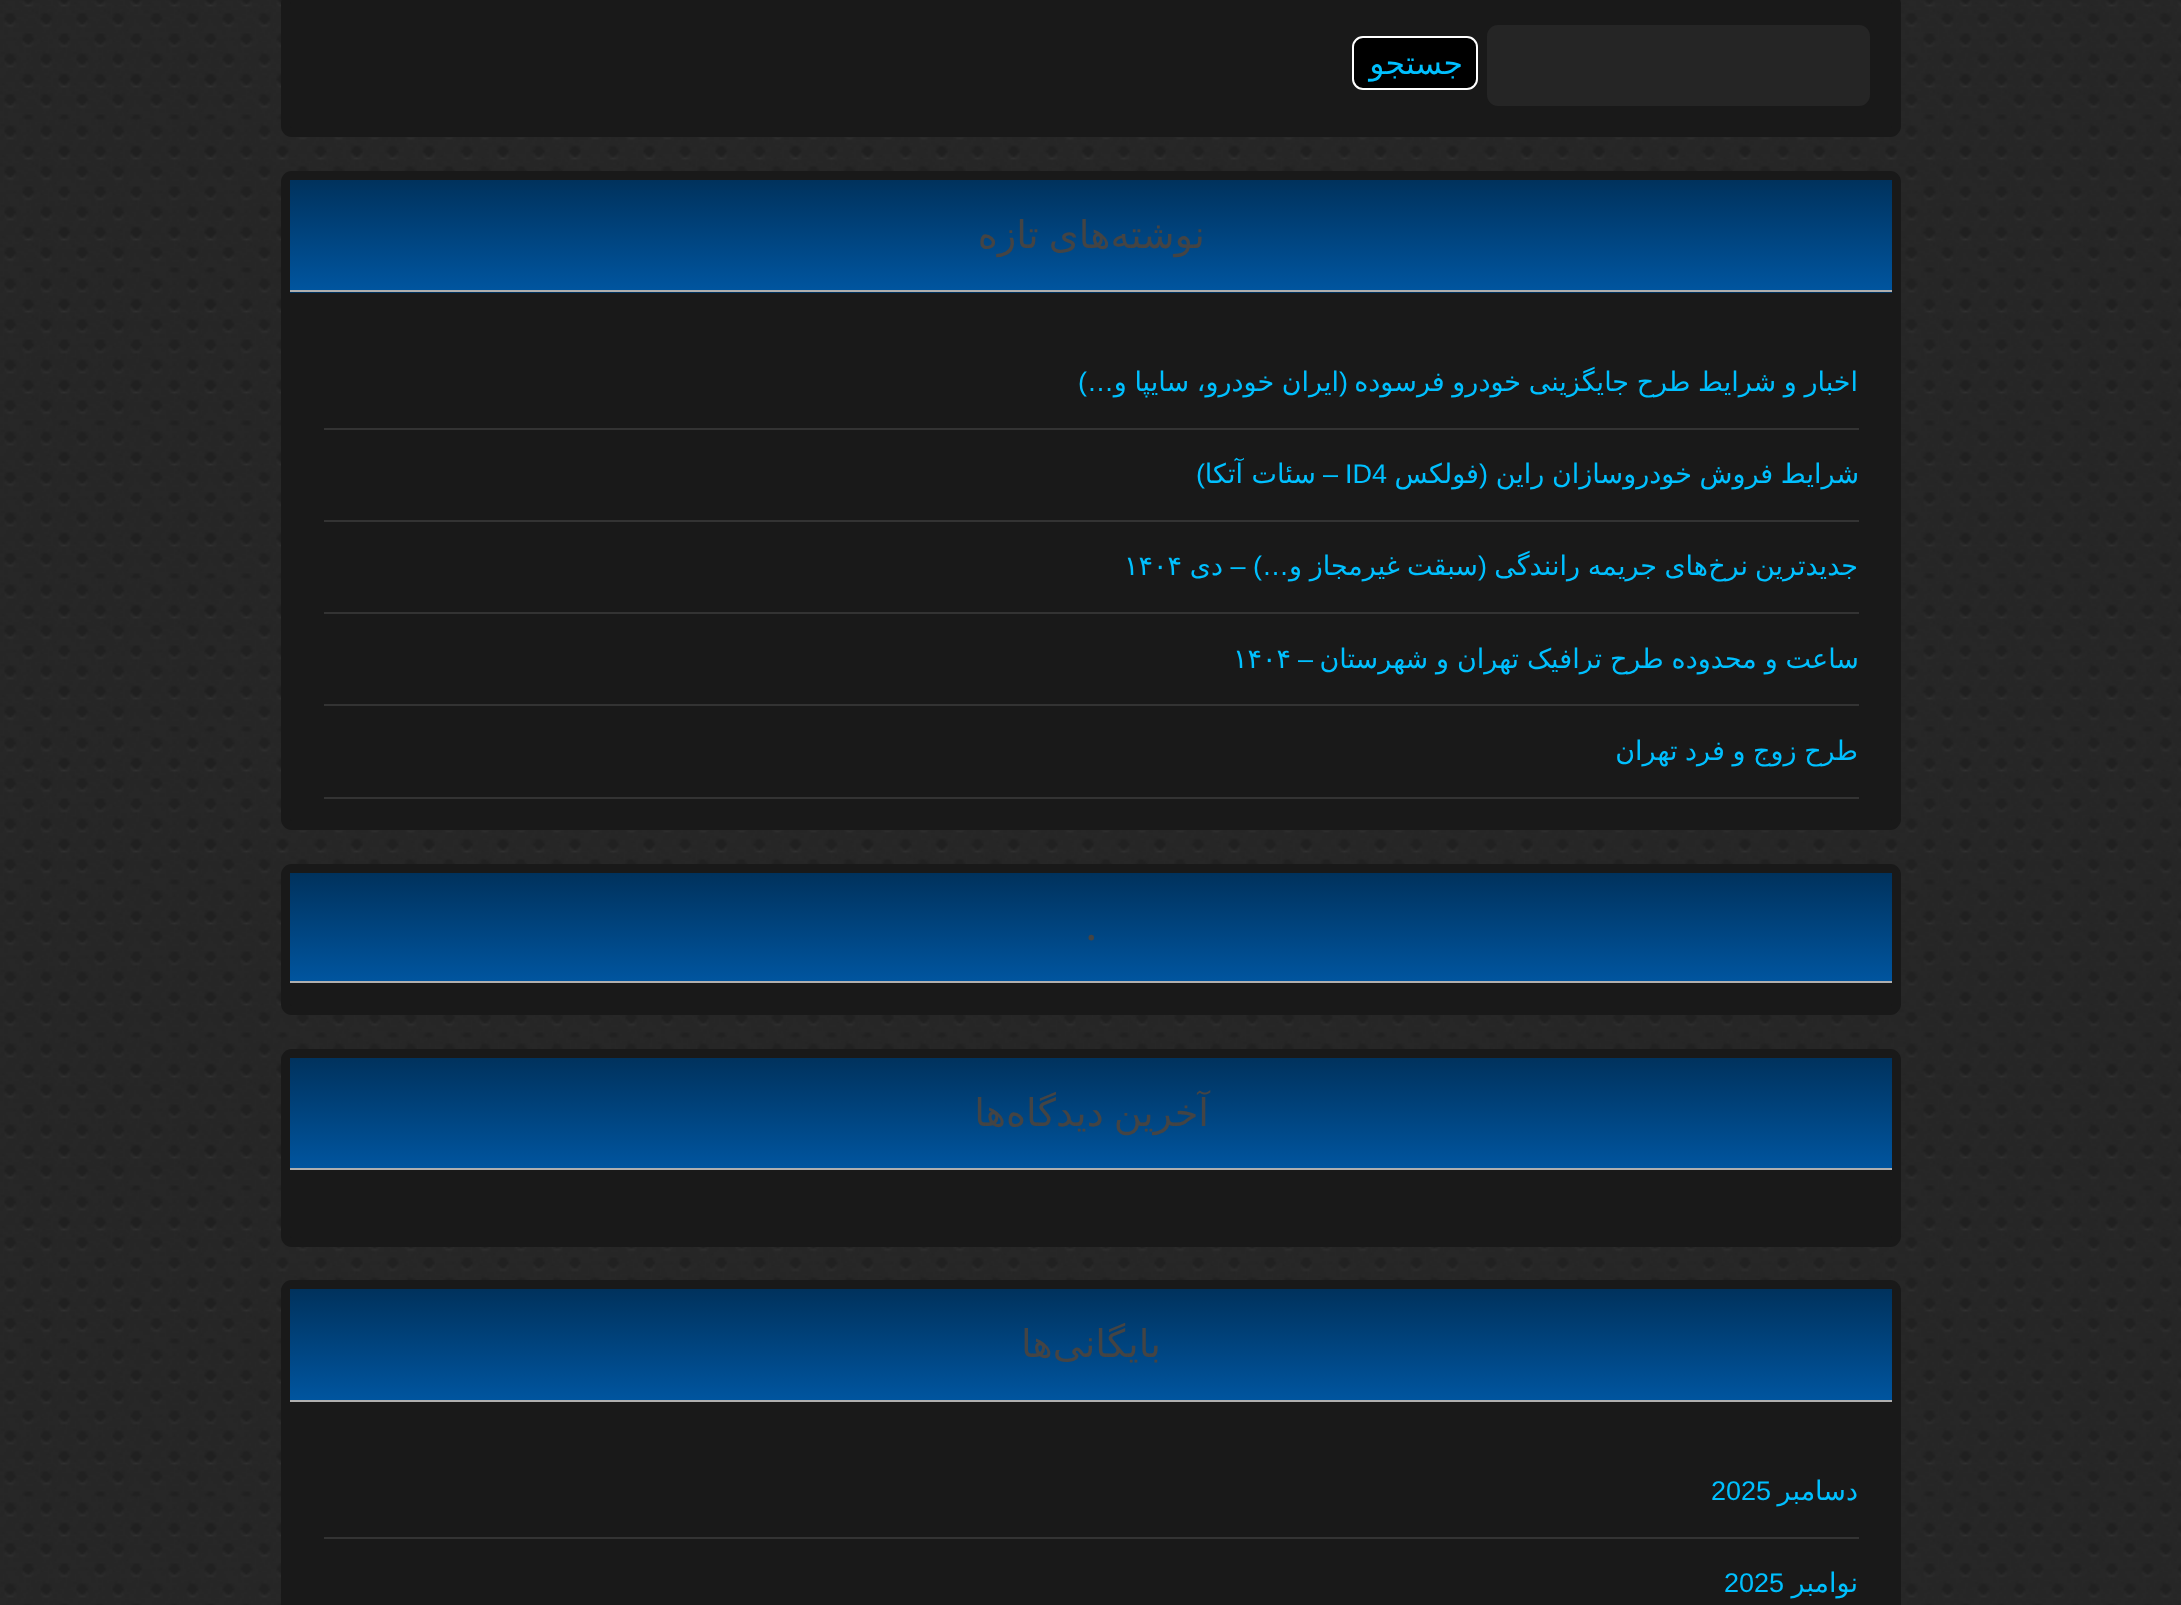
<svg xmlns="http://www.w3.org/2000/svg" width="2181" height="1605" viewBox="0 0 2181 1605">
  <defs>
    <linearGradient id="g1" gradientUnits="userSpaceOnUse" x1="1091" y1="180" x2="1091" y2="290"><stop offset="0" stop-color="rgb(0,50,93)"/><stop offset="1" stop-color="rgb(0,85,159)"/></linearGradient>
    <linearGradient id="g2" gradientUnits="userSpaceOnUse" x1="1091" y1="290" x2="1091" y2="401"><stop offset="0" stop-color="rgb(0,50,93)"/><stop offset="1" stop-color="rgb(0,85,159)"/></linearGradient>
    <linearGradient id="g3" gradientUnits="userSpaceOnUse" x1="1091" y1="873" x2="1091" y2="981"><stop offset="0" stop-color="rgb(0,50,93)"/><stop offset="1" stop-color="rgb(0,85,159)"/></linearGradient>
    <linearGradient id="g4" gradientUnits="userSpaceOnUse" x1="1091" y1="1057" x2="1091" y2="1168"><stop offset="0" stop-color="rgb(0,50,93)"/><stop offset="1" stop-color="rgb(0,85,159)"/></linearGradient>
    <linearGradient id="g5" gradientUnits="userSpaceOnUse" x1="1091" y1="1289" x2="1091" y2="1400"><stop offset="0" stop-color="rgb(0,50,93)"/><stop offset="1" stop-color="rgb(0,85,159)"/></linearGradient>
  </defs>
  <rect width="100%" height="100%" fill="rgb(255,255,255)"/>
  <image x="0" y="0" width="2181" height="1605" href="pic1.png"/>
  <rect x="285.5" y="-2.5" width="1611" height="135" rx="6.5" fill="rgb(25,25,25)" stroke="rgb(25,25,25)" stroke-width="9"/>
  <rect x="1487" y="25" width="383" height="81" rx="11" fill="rgb(37,37,37)"/>
  <rect x="1353" y="37" width="124" height="52" rx="10" fill="rgb(0,0,0)" stroke="rgb(255,255,255)" stroke-width="2"/>
  <text x="1463" y="74" font-family="DejaVu Sans" font-size="31.5" direction="rtl" fill="rgb(0,192,255)">جستجو</text>
  <rect x="285.5" y="175.5" width="1611" height="650" rx="6.5" fill="rgb(25,25,25)" stroke="rgb(25,25,25)" stroke-width="9"/>
  <rect x="290" y="180" width="1602" height="110" fill="url(#g1)"/>
  <rect x="290" y="292" width="1602" height="1" fill="url(#g2)"/>
  <rect x="290" y="290" width="1602" height="2" fill="rgb(175,175,175)"/>
  <text x="1205" y="248" word-spacing="-2" font-family="DejaVu Sans" font-size="38.25" direction="rtl" fill="rgb(68,68,68)">نوشته‌های تازه</text>
  <rect x="324" y="428" width="1535" height="2" fill="rgb(51,51,51)"/>
  <text x="1858" y="391" word-spacing="-1" font-family="DejaVu Sans" font-size="27" direction="rtl" fill="rgb(0,192,255)">اخبار و شرایط طرح جایگزینی خودرو فرسوده</text>
  <g font-family="Liberation Sans" font-size="27" direction="rtl" fill="rgb(0,192,255)">
    <text x="1348" y="391">(</text>
    <text x="1114" y="391">…)</text>
  </g>
  <text x="1339" y="391" word-spacing="-1" font-family="DejaVu Sans" font-size="27" direction="rtl" fill="rgb(0,192,255)">ایران خودرو، سایپا و</text>
  <rect x="324" y="520" width="1535" height="2" fill="rgb(51,51,51)"/>
  <text x="1859" y="483" word-spacing="-1" font-family="DejaVu Sans" font-size="27" direction="rtl" fill="rgb(0,192,255)">شرایط فروش خودروسازان راین</text>
  <text x="1488" y="483" font-family="Liberation Sans" font-size="27" direction="rtl" fill="rgb(0,192,255)">(</text>
  <text x="1479" y="483" font-family="DejaVu Sans" font-size="27" direction="rtl" fill="rgb(0,192,255)">فولکس</text>
  <text x="1345" y="483" font-family="Liberation Sans" font-size="27" fill="rgb(0,192,255)">ID4</text>
  <text x="1338" y="483" font-family="Liberation Sans" font-size="27" direction="rtl" fill="rgb(0,192,255)">–</text>
  <text x="1316" y="483" font-family="DejaVu Sans" font-size="27" direction="rtl" fill="rgb(0,192,255)">سئات آتکا</text>
  <text x="1205" y="483" font-family="Liberation Sans" font-size="27" direction="rtl" fill="rgb(0,192,255)">)</text>
  <rect x="324" y="612" width="1535" height="2" fill="rgb(51,51,51)"/>
  <g font-family="DejaVu Sans" font-size="27" direction="rtl" fill="rgb(0,192,255)">
    <text x="1858" y="575">جدیدترین</text>
    <text x="1748" y="575">نرخ</text>
    <text x="1708" y="575">های</text>
    <text x="1657" y="575">جریمه</text>
    <text x="1580" y="575">رانندگی</text>
  </g>
  <text x="1487" y="575" font-family="Liberation Sans" font-size="27" direction="rtl" fill="rgb(0,192,255)">(</text>
  <g font-family="DejaVu Sans" font-size="27" direction="rtl" fill="rgb(0,192,255)">
    <text x="1478" y="575">سبقت</text>
    <text x="1400" y="575">غیرمجاز</text>
  </g>
  <text x="1289" y="575" font-family="Liberation Sans" font-size="27" direction="rtl" fill="rgb(0,192,255)">…) –</text>
  <g font-family="DejaVu Sans" font-size="27" direction="rtl" fill="rgb(0,192,255)">
    <text x="1302" y="575">و</text>
    <text x="1223" y="575">دی</text>
  </g>
  <text x="1124" y="575" font-family="DejaVu Sans" font-size="27" fill="rgb(0,192,255)">۱۴۰۴</text>
  <rect x="324" y="704" width="1535" height="2" fill="rgb(51,51,51)"/>
  <text x="1859" y="668" word-spacing="-0.75" font-family="DejaVu Sans" font-size="27" direction="rtl" fill="rgb(0,192,255)">ساعت و محدوده طرح ترافیک تهران و شهرستان</text>
  <text x="1313" y="668" font-family="Liberation Sans" font-size="27" direction="rtl" fill="rgb(0,192,255)">–</text>
  <text x="1233" y="668" font-family="DejaVu Sans" font-size="27" fill="rgb(0,192,255)">۱۴۰۴</text>
  <rect x="324" y="797" width="1535" height="2" fill="rgb(51,51,51)"/>
  <text x="1858" y="760" word-spacing="-1" font-family="DejaVu Sans" font-size="27" direction="rtl" fill="rgb(0,192,255)">طرح زوج و فرد تهران</text>
  <rect x="285.5" y="868.5" width="1611" height="142" rx="6.5" fill="rgb(25,25,25)" stroke="rgb(25,25,25)" stroke-width="9"/>
  <rect x="290" y="873" width="1602" height="108" fill="url(#g3)"/>
  <rect x="290" y="981" width="1602" height="2" fill="rgb(175,175,175)"/>
  <text x="1086" y="940" font-family="Open Sans" font-size="38.25" font-weight="600" fill="rgb(68,68,68)">.</text>
  <rect x="285.5" y="1053.5" width="1611" height="189" rx="6.5" fill="rgb(25,25,25)" stroke="rgb(25,25,25)" stroke-width="9"/>
  <rect x="290" y="1058" width="1602" height="110" fill="url(#g4)"/>
  <rect x="290" y="1168" width="1602" height="2" fill="rgb(175,175,175)"/>
  <text x="1209" y="1126" word-spacing="-2" font-family="DejaVu Sans" font-size="38.25" direction="rtl" fill="rgb(68,68,68)">آخرین دیدگاه‌ها</text>
  <rect x="285.5" y="1284.5" width="1611" height="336" rx="6.5" fill="rgb(25,25,25)" stroke="rgb(25,25,25)" stroke-width="9"/>
  <rect x="290" y="1289" width="1602" height="111" fill="url(#g5)"/>
  <rect x="290" y="1400" width="1602" height="2" fill="rgb(175,175,175)"/>
  <text x="1161" y="1357" font-family="DejaVu Sans" font-size="38.25" direction="rtl" fill="rgb(68,68,68)">بایگانی‌ها</text>
  <rect x="324" y="1537" width="1535" height="2" fill="rgb(51,51,51)"/>
  <text x="1858" y="1500" font-family="DejaVu Sans" font-size="27" direction="rtl" fill="rgb(0,192,255)">دسامبر</text>
  <text x="1711" y="1500" font-family="Liberation Sans" font-size="27" fill="rgb(0,192,255)">2025</text>
  <text x="1858" y="1592" font-family="DejaVu Sans" font-size="27" direction="rtl" fill="rgb(0,192,255)">نوامبر</text>
  <text x="1724" y="1592" font-family="Liberation Sans" font-size="27" fill="rgb(0,192,255)">2025</text>
</svg>
